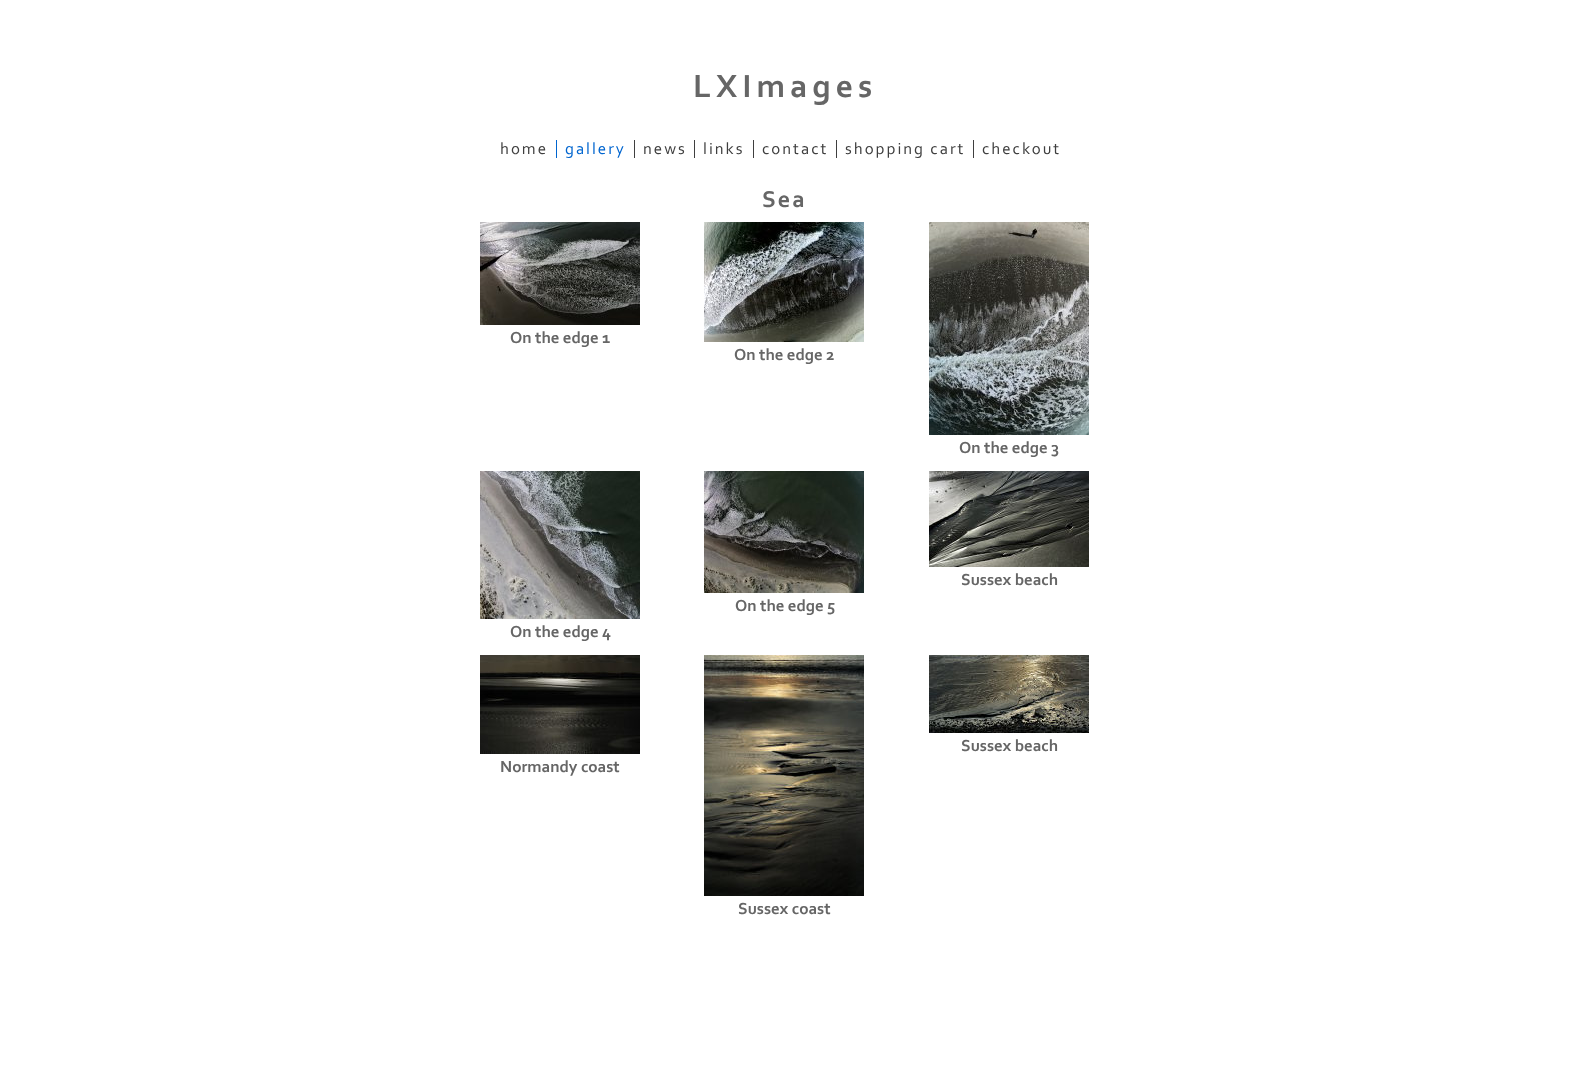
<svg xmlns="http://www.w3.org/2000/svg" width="1569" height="1066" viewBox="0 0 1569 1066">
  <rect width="100%" height="100%" fill="rgb(255,255,255)"/>
  <text x="693" y="97" font-family="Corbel" font-size="33.5" font-weight="bold" letter-spacing="5" fill="rgb(102,102,102)">LXImages</text>
  <text x="500" y="154" font-family="Corbel" font-size="16.75" letter-spacing="2" fill="rgb(63,63,63)">home</text>
  <rect x="556" y="140" width="1" height="18" fill="rgb(0,101,207)"/>
  <text x="565" y="154" font-family="Corbel" font-size="16.75" letter-spacing="2" fill="rgb(0,101,207)">gallery</text>
  <rect x="634" y="140" width="1" height="18" fill="rgb(63,63,63)"/>
  <text x="643" y="154" font-family="Corbel" font-size="16.75" letter-spacing="2" fill="rgb(63,63,63)">news</text>
  <rect x="694" y="140" width="1" height="18" fill="rgb(63,63,63)"/>
  <text x="703" y="154" font-family="Corbel" font-size="16.75" letter-spacing="2" fill="rgb(63,63,63)">links</text>
  <rect x="753" y="140" width="1" height="18" fill="rgb(63,63,63)"/>
  <text x="762" y="154" font-family="Corbel" font-size="16.75" letter-spacing="2" fill="rgb(63,63,63)">contact</text>
  <rect x="836" y="140" width="1" height="18" fill="rgb(63,63,63)"/>
  <text x="845" y="154" font-family="Corbel" font-size="16.75" letter-spacing="2" fill="rgb(63,63,63)">shopping cart</text>
  <rect x="973" y="140" width="1" height="18" fill="rgb(63,63,63)"/>
  <text x="982" y="154" font-family="Corbel" font-size="16.75" letter-spacing="2" fill="rgb(63,63,63)">checkout</text>
  <text x="762" y="207" font-family="Corbel" font-size="24" font-weight="bold" letter-spacing="2" fill="rgb(102,102,102)">Sea</text>
  <image x="480" y="222" width="160" height="103" href="pic1.png"/>
  <text x="510" y="343" font-family="Corbel" font-size="16.75" font-weight="bold" fill="rgb(102,102,102)">On the edge 1</text>
  <image x="704" y="222" width="160" height="120" href="pic2.png"/>
  <text x="734" y="360" font-family="Corbel" font-size="16.75" font-weight="bold" fill="rgb(102,102,102)">On the edge 2</text>
  <image x="929" y="222" width="160" height="213" href="pic3.png"/>
  <text x="959" y="453" font-family="Corbel" font-size="16.75" font-weight="bold" fill="rgb(102,102,102)">On the edge 3</text>
  <image x="929" y="471" width="160" height="96" href="pic4.png"/>
  <text x="961" y="585" font-family="Corbel" font-size="16.75" font-weight="bold" fill="rgb(102,102,102)">Sussex beach</text>
  <image x="704" y="471" width="160" height="122" href="pic5.png"/>
  <text x="735" y="611" font-family="Corbel" font-size="16.75" font-weight="bold" fill="rgb(102,102,102)">On the edge 5</text>
  <image x="480" y="471" width="160" height="148" href="pic6.png"/>
  <text x="510" y="637" font-family="Corbel" font-size="16.75" font-weight="bold" fill="rgb(102,102,102)">On the edge 4</text>
  <image x="929" y="655" width="160" height="78" href="pic7.png"/>
  <text x="961" y="751" font-family="Corbel" font-size="16.75" font-weight="bold" fill="rgb(102,102,102)">Sussex beach</text>
  <image x="480" y="655" width="160" height="99" href="pic8.png"/>
  <text x="500" y="772" font-family="Corbel" font-size="16.75" font-weight="bold" fill="rgb(102,102,102)">Normandy coast</text>
  <image x="704" y="655" width="160" height="241" href="pic9.png"/>
  <text x="738" y="914" font-family="Corbel" font-size="16.75" font-weight="bold" fill="rgb(102,102,102)">Sussex coast</text>
</svg>
